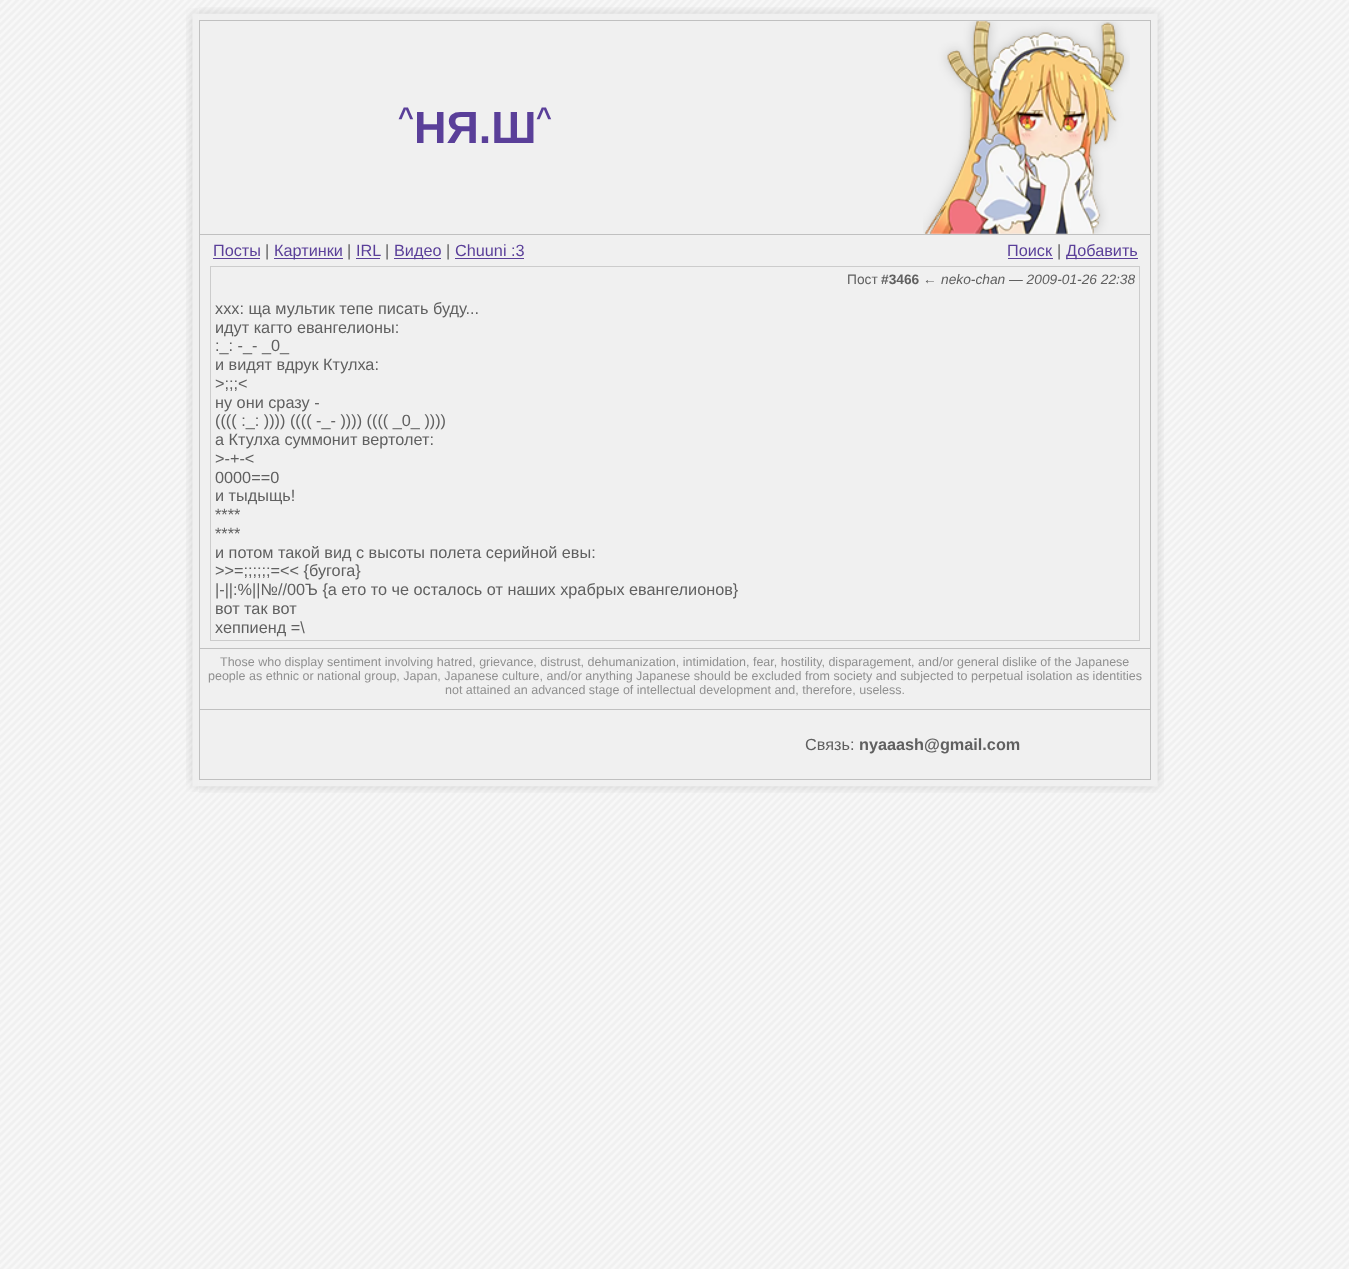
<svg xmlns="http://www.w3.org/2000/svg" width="1349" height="1269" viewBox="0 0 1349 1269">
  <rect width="100%" height="100%" fill="rgb(255,255,255)"/>
  <image x="0" y="0" width="1349" height="1269" href="pic1.png"/>
  <image x="199" y="7" width="965" height="13" href="pic2.png"/>
  <image x="186" y="8" width="13" height="12" href="pic3.png"/>
  <image x="186" y="20" width="13" height="760" href="pic4.png"/>
  <image x="1151" y="20" width="13" height="760" href="pic5.png"/>
  <rect x="199.5" y="20.5" width="951" height="759" fill="rgb(240,240,240)" stroke="rgb(192,192,192)"/>
  <rect x="200" y="234" width="950" height="1" fill="rgb(192,192,192)"/>
  <text x="398" y="126" font-family="Liberation Sans" font-size="27" font-weight="bold" fill="rgb(90,63,153)">^</text>
  <text x="414" y="143" font-family="Liberation Sans" font-size="45" font-weight="bold" fill="rgb(90,63,153)">НЯ.Ш</text>
  <text x="536" y="126" font-family="Liberation Sans" font-size="27" font-weight="bold" fill="rgb(90,63,153)">^</text>
  <image x="923" y="21" width="207" height="213" href="pic6.png"/>
  <text x="213" y="256" font-family="Liberation Sans" font-size="16.25" fill="rgb(90,63,153)">Посты</text>
  <rect x="213" y="258" width="47" height="1" fill="rgb(90,63,153)"/>
  <text x="265" y="256" font-family="Liberation Sans" font-size="16.25" fill="rgb(96,96,96)">|</text>
  <rect x="274" y="258" width="69" height="1" fill="rgb(90,63,153)"/>
  <text x="274" y="256" font-family="Liberation Sans" font-size="16.25" fill="rgb(90,63,153)">Картинки</text>
  <text x="347" y="256" font-family="Liberation Sans" font-size="16.25" fill="rgb(96,96,96)">|</text>
  <text x="356" y="256" font-family="Liberation Sans" font-size="16.25" fill="rgb(90,63,153)">IRL</text>
  <rect x="356" y="258" width="24" height="1" fill="rgb(90,63,153)"/>
  <text x="385" y="256" font-family="Liberation Sans" font-size="16.25" fill="rgb(96,96,96)">|</text>
  <rect x="394" y="258" width="47" height="1" fill="rgb(90,63,153)"/>
  <text x="394" y="256" font-family="Liberation Sans" font-size="16.25" fill="rgb(90,63,153)">Видео</text>
  <text x="446" y="256" font-family="Liberation Sans" font-size="16.25" fill="rgb(96,96,96)">|</text>
  <text x="455" y="256" font-family="Liberation Sans" font-size="16.25" fill="rgb(90,63,153)">Chuuni :3</text>
  <rect x="455" y="258" width="69" height="1" fill="rgb(90,63,153)"/>
  <text x="1007" y="256" font-family="Liberation Sans" font-size="16.25" fill="rgb(90,63,153)">Поиск</text>
  <rect x="1008" y="258" width="45" height="1" fill="rgb(90,63,153)"/>
  <text x="1057" y="256" font-family="Liberation Sans" font-size="16.25" fill="rgb(96,96,96)">|</text>
  <rect x="1066" y="258" width="72" height="1" fill="rgb(90,63,153)"/>
  <text x="1066" y="256" font-family="Liberation Sans" font-size="16.25" fill="rgb(90,63,153)">Добавить</text>
  <rect x="210.5" y="266.5" width="929" height="374" fill="none" stroke="rgb(204,204,204)"/>
  <text x="847" y="284" font-family="Liberation Sans" font-size="13.75" fill="rgb(96,96,96)">Пост</text>
  <text x="881" y="284" font-family="Liberation Sans" font-size="13.75" font-weight="bold" fill="rgb(96,96,96)">#3466</text>
  <text x="923" y="284" font-family="Liberation Sans" font-size="13.75" fill="rgb(96,96,96)">←</text>
  <text x="941" y="284" font-family="Liberation Sans" font-size="13.75" font-style="italic" fill="rgb(96,96,96)">neko-chan — 2009-01-26 22:38</text>
  <g font-family="Liberation Sans" font-size="16.25" fill="rgb(96,96,96)">
    <text>
      <tspan x="215" y="314">xxx: ща мультик тепе писать буду...</tspan>
      <tspan x="215" y="333">идут кагто евангелионы:</tspan>
      <tspan x="215" y="351">:_: -_- _0_</tspan>
      <tspan x="215" y="370">и видят вдрук Ктулха:</tspan>
      <tspan x="215" y="389">&gt;;;;&lt;</tspan>
      <tspan x="215" y="408">ну они сразу -</tspan>
      <tspan x="215" y="426">(((( :_: )))) (((( -_- )))) (((( _0_ ))))</tspan>
      <tspan x="215" y="445">а Ктулха суммонит вертолет:</tspan>
      <tspan x="215" y="464">&gt;-+-&lt;</tspan>
      <tspan x="215" y="483">0000==0</tspan>
      <tspan x="215" y="501">и тыдыщь!</tspan>
      <tspan x="215" y="520">****</tspan>
      <tspan x="215" y="539">****</tspan>
      <tspan x="215" y="558">и потом такой вид с высоты полета серийной евы:</tspan>
      <tspan x="215" y="576">&gt;&gt;=;;;;;;=&lt;&lt; {бугога}</tspan>
      <tspan x="215" y="595">|-||:%||№//00Ъ {а ето то че осталось от наших храбрых евангелионов}</tspan>
      <tspan x="215" y="614">вот так вот</tspan>
      <tspan x="215" y="633">хеппиенд =\</tspan>
    </text>
  </g>
  <rect x="200" y="648" width="950" height="1" fill="rgb(192,192,192)"/>
  <g font-family="Liberation Sans" font-size="12.5" fill="rgb(144,144,144)">
    <text x="220" y="666">Those who display sentiment involving hatred, grievance, distrust, dehumanization, intimidation, fear, hostility, disparagement, and/or general dislike of the Japanese</text>
    <text x="208" y="680">people as ethnic or national group, Japan, Japanese culture, and/or anything Japanese should be excluded from society and subjected to perpetual isolation as identities</text>
    <text x="445" y="694">not attained an advanced stage of intellectual development and, therefore, useless.</text>
  </g>
  <rect x="200" y="709" width="950" height="1" fill="rgb(192,192,192)"/>
  <text x="805" y="750" font-family="Liberation Sans" font-size="16.25" fill="rgb(96,96,96)">Связь:</text>
  <text x="859" y="750" font-family="Liberation Sans" font-size="16.25" font-weight="bold" fill="rgb(96,96,96)">nyaaash@gmail.com</text>
  <image x="199" y="780" width="965" height="13" href="pic7.png"/>
  <image x="186" y="780" width="13" height="12" href="pic8.png"/>
</svg>
